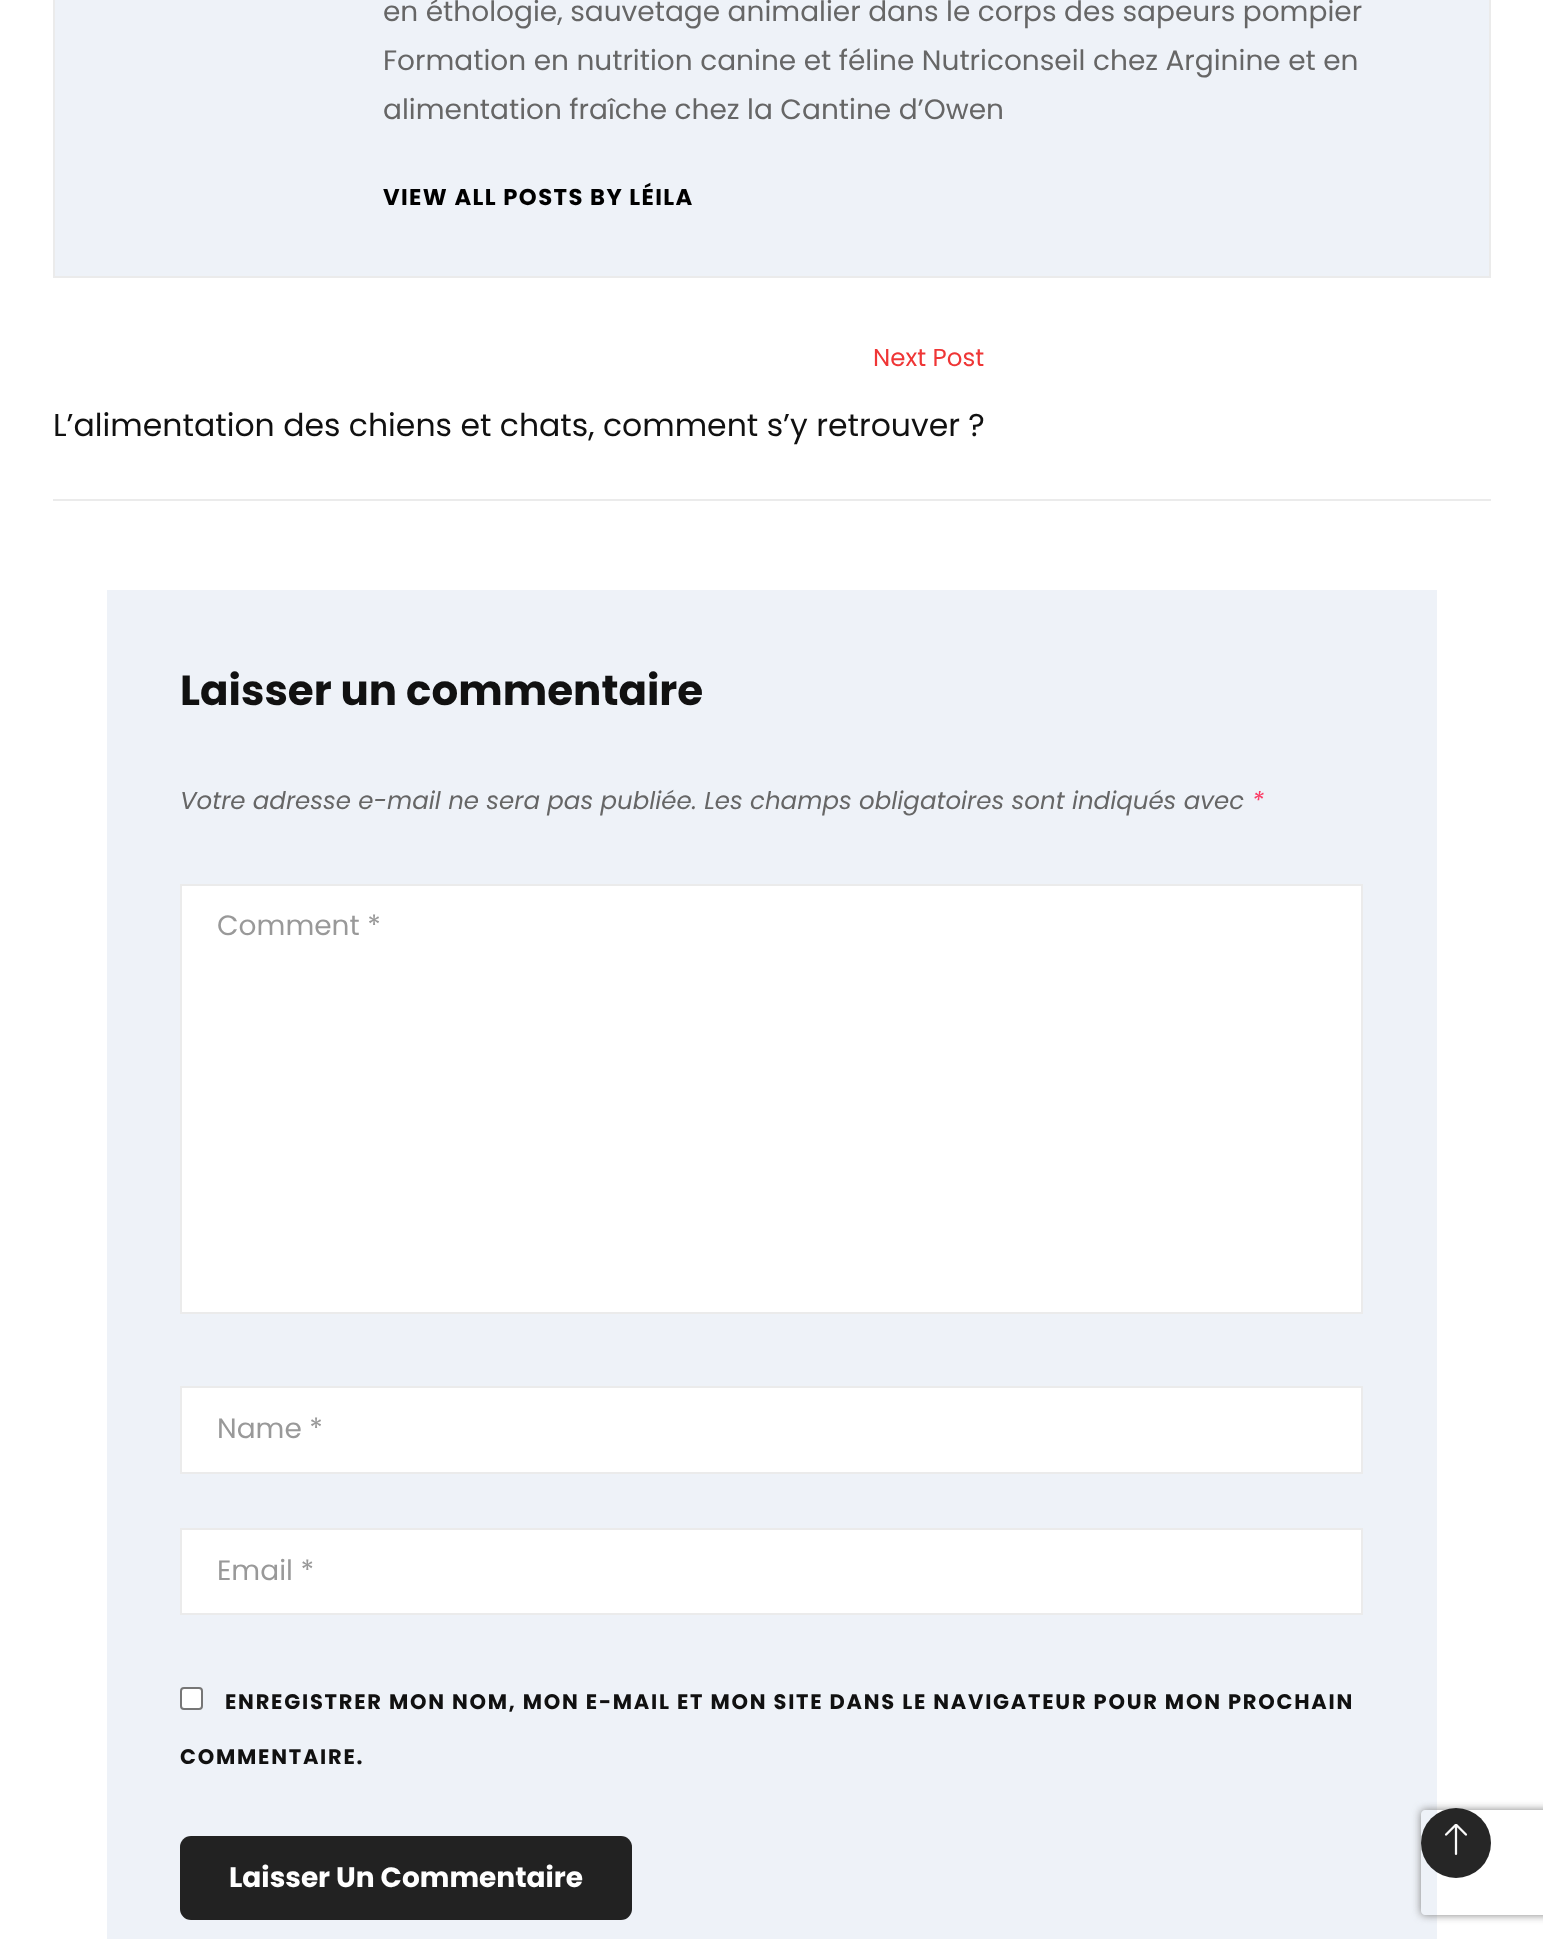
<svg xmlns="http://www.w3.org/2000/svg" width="1543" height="1939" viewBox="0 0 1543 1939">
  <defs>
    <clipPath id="clip1"><path d="M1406 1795H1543V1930H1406ZM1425 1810H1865C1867 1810 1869 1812 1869 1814V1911C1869 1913 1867 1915 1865 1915H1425C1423 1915 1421 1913 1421 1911V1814C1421 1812 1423 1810 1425 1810Z" clip-rule="evenodd"/></clipPath>
  </defs>
  <rect width="100%" height="100%" fill="rgb(255,255,255)"/>
  <rect x="54" y="-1" width="1436" height="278" fill="rgb(238,242,248)" stroke="rgb(235,235,235)" stroke-width="2"/>
  <g font-family="Poppins" font-size="28" fill="rgb(102,102,102)">
    <text>
      <tspan x="383" y="21">en éthologie, sauvetage animalier dans le corps des sapeurs pompier</tspan>
      <tspan x="383" y="70">Formation en nutrition canine et féline Nutriconseil chez Arginine et en</tspan>
      <tspan x="383" y="119">alimentation fraîche chez la Cantine d’Owen</tspan>
    </text>
  </g>
  <text x="383" y="205" font-family="Poppins" font-size="22.75" font-weight="bold" letter-spacing="1.4" fill="rgb(0,0,0)">VIEW ALL POSTS BY LÉILA</text>
  <text x="873" y="366" font-family="Poppins" font-size="24.5" fill="rgb(239,54,54)">Next Post</text>
  <text x="53" y="436" font-family="Poppins" font-size="31.5" fill="rgb(17,17,17)">L’alimentation des chiens et chats, comment s’y retrouver ?</text>
  <rect x="53" y="499" width="1438" height="2" fill="rgb(235,235,235)"/>
  <rect x="107" y="590" width="1330" height="1349" fill="rgb(238,242,248)"/>
  <text x="180" y="705" font-family="Poppins" font-size="42" font-weight="bold" fill="rgb(17,17,17)">Laisser un commentaire</text>
  <text x="180" y="809" font-family="Poppins" font-size="24.5" font-style="italic" fill="rgb(102,102,102)">Votre adresse e-mail ne sera pas publiée. Les champs obligatoires sont indiqués avec</text>
  <text x="1252" y="809" font-family="Poppins" font-size="24.5" font-style="italic" fill="rgb(251,58,100)">*</text>
  <rect x="181" y="885" width="1181" height="428" fill="rgb(255,255,255)" stroke="rgb(235,235,235)" stroke-width="2"/>
  <text x="217" y="935" font-family="Poppins" font-size="28" fill="rgb(153,153,153)">Comment *</text>
  <rect x="181" y="1387" width="1181" height="86" fill="rgb(255,255,255)" stroke="rgb(235,235,235)" stroke-width="2"/>
  <text x="217" y="1438" font-family="Poppins" font-size="28" fill="rgb(153,153,153)">Name *</text>
  <rect x="181" y="1529" width="1181" height="85" fill="rgb(255,255,255)" stroke="rgb(235,235,235)" stroke-width="2"/>
  <text x="217" y="1580" font-family="Poppins" font-size="28" fill="rgb(153,153,153)">Email *</text>
  <rect x="181" y="1688" width="21" height="21" rx="3" fill="rgb(255,255,255)" stroke="rgb(118,118,118)" stroke-width="2"/>
  <g font-family="Poppins" font-size="21" font-weight="bold" letter-spacing="1.75" fill="rgb(17,17,17)">
    <text x="225" y="1709">ENREGISTRER MON NOM, MON E-MAIL ET MON SITE DANS LE NAVIGATEUR POUR MON PROCHAIN</text>
    <text x="180" y="1764">COMMENTAIRE.</text>
  </g>
  <rect x="180" y="1836" width="452" height="84" rx="11" fill="rgb(34,34,34)"/>
  <text x="229" y="1887" font-family="Poppins" font-size="28" font-weight="bold" fill="rgb(255,255,255)">Laisser Un Commentaire</text>
  <g clip-path="url(#clip1)">
    <rect x="1421" y="1810" width="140" height="105" rx="4" fill="rgb(128,128,128)" filter="blur(4.5px)"/>
  </g>
  <circle cx="1456" cy="1843" r="35" fill="rgba(34,34,34,0.98)"/>
  <image x="1444" y="1824" width="24" height="31" href="pic1.png"/>
</svg>
